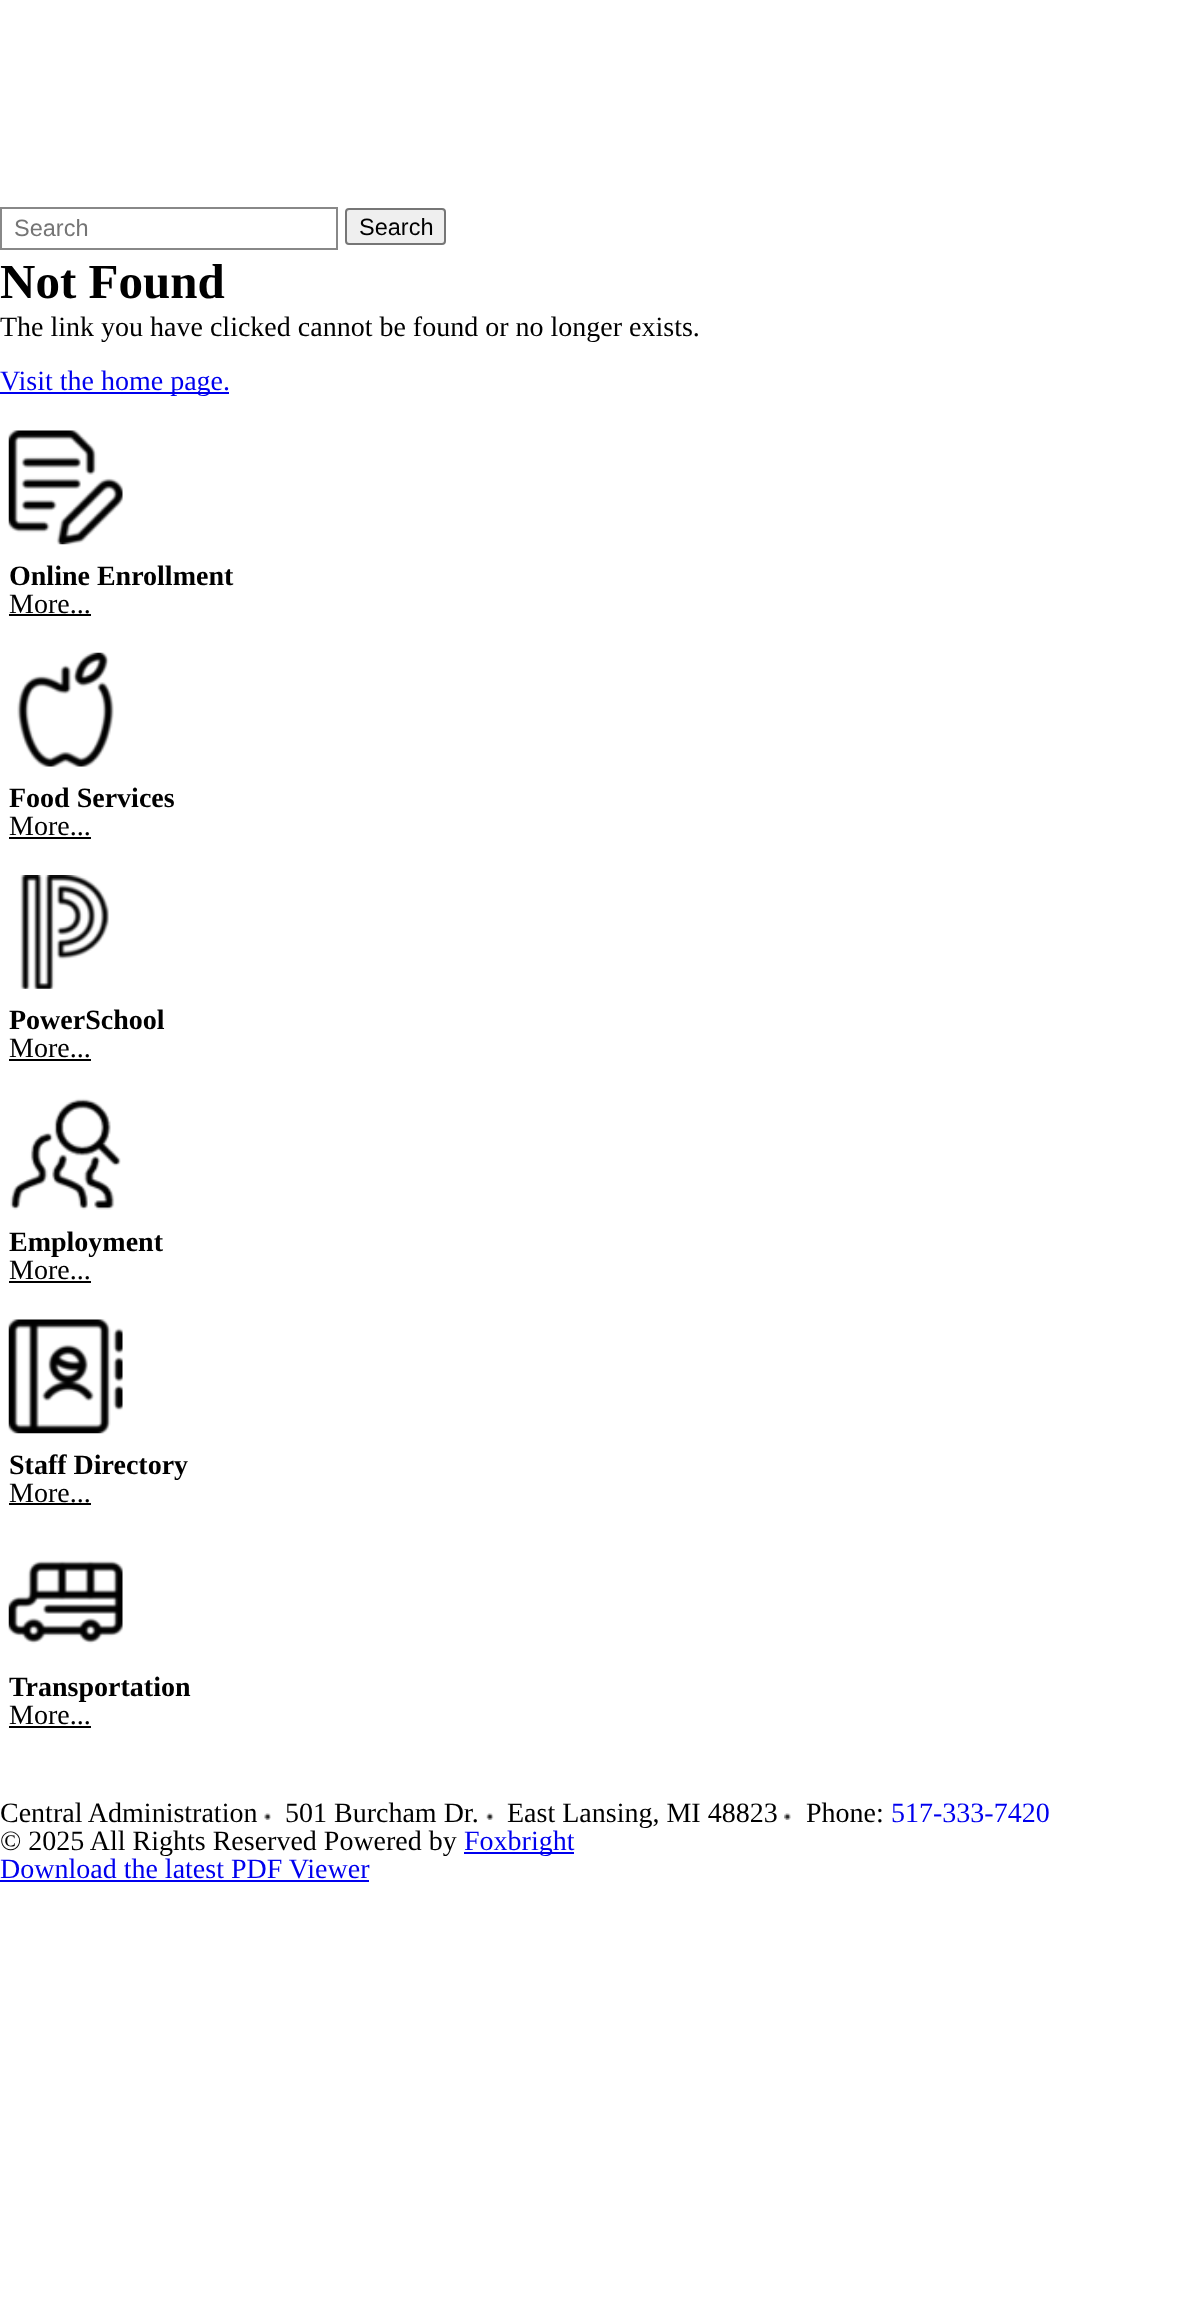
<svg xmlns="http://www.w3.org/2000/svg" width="1186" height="2303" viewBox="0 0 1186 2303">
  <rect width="100%" height="100%" fill="rgb(255,255,255)"/>
  <rect x="1" y="208" width="336" height="41" fill="none" stroke="rgb(136,136,136)" stroke-width="2"/>
  <text x="14" y="236" font-family="Liberation Sans" font-size="23.5" fill="rgb(117,117,117)">Search</text>
  <rect x="346" y="209" width="99" height="35" rx="3" fill="rgb(239,239,239)" stroke="rgb(118,118,118)" stroke-width="2"/>
  <text x="359" y="235" font-family="Liberation Sans" font-size="23.5" fill="rgb(0,0,0)">Search</text>
  <text x="0" y="298" font-family="Liberation Serif" font-size="49" font-weight="bold" fill="rgb(0,0,0)">Not Found</text>
  <text x="0" y="336" font-family="Liberation Serif" font-size="28" fill="rgb(0,0,0)">The link you have clicked cannot be found or no longer exists.</text>
  <rect x="0" y="392" width="229" height="2" fill="rgb(0,0,238)"/>
  <text x="0" y="390" font-family="Liberation Serif" font-size="28" fill="rgb(0,0,238)">Visit the home page.</text>
  <image x="8" y="430" width="115" height="115" href="pic1.png"/>
  <text x="9" y="585" font-family="Liberation Serif" font-size="28" font-weight="bold" fill="rgb(0,0,0)">Online Enrollment</text>
  <text x="9" y="613" font-family="Liberation Serif" font-size="28" fill="rgb(0,0,0)">More...</text>
  <rect x="9" y="614" width="82" height="2" fill="rgb(0,0,0)"/>
  <image x="17" y="652" width="97" height="115" href="pic2.png"/>
  <text x="9" y="807" font-family="Liberation Serif" font-size="28" font-weight="bold" fill="rgb(0,0,0)">Food Services</text>
  <text x="9" y="835" font-family="Liberation Serif" font-size="28" fill="rgb(0,0,0)">More...</text>
  <rect x="9" y="837" width="82" height="2" fill="rgb(0,0,0)"/>
  <image x="20" y="875" width="89" height="114" href="pic3.png"/>
  <text x="9" y="1029" font-family="Liberation Serif" font-size="28" font-weight="bold" fill="rgb(0,0,0)">PowerSchool</text>
  <text x="9" y="1057" font-family="Liberation Serif" font-size="28" fill="rgb(0,0,0)">More...</text>
  <rect x="9" y="1059" width="82" height="2" fill="rgb(0,0,0)"/>
  <image x="10" y="1098" width="111" height="112" href="pic4.png"/>
  <text x="9" y="1251" font-family="Liberation Serif" font-size="28" font-weight="bold" fill="rgb(0,0,0)">Employment</text>
  <text x="9" y="1279" font-family="Liberation Serif" font-size="28" fill="rgb(0,0,0)">More...</text>
  <rect x="9" y="1281" width="82" height="2" fill="rgb(0,0,0)"/>
  <image x="8" y="1319" width="115" height="115" href="pic5.png"/>
  <text x="9" y="1474" font-family="Liberation Serif" font-size="28" font-weight="bold" fill="rgb(0,0,0)">Staff Directory</text>
  <text x="9" y="1502" font-family="Liberation Serif" font-size="28" fill="rgb(0,0,0)">More...</text>
  <rect x="9" y="1503" width="82" height="2" fill="rgb(0,0,0)"/>
  <image x="8" y="1560" width="115" height="84" href="pic6.png"/>
  <text x="9" y="1696" font-family="Liberation Serif" font-size="28" font-weight="bold" fill="rgb(0,0,0)">Transportation</text>
  <text x="9" y="1724" font-family="Liberation Serif" font-size="28" fill="rgb(0,0,0)">More...</text>
  <rect x="9" y="1726" width="82" height="2" fill="rgb(0,0,0)"/>
  <text x="0" y="1822" font-family="Liberation Serif" font-size="28" fill="rgb(0,0,0)">Central Administration</text>
  <image x="264" y="1813" width="7" height="7" href="pic7.png"/>
  <text x="285" y="1822" font-family="Liberation Serif" font-size="28" fill="rgb(0,0,0)">501 Burcham Dr.</text>
  <image x="486" y="1813" width="8" height="7" href="pic8.png"/>
  <text x="507" y="1822" font-family="Liberation Serif" font-size="28" fill="rgb(0,0,0)">East Lansing, MI 48823</text>
  <image x="784" y="1813" width="7" height="7" href="pic9.png"/>
  <text x="806" y="1822" font-family="Liberation Serif" font-size="28" fill="rgb(0,0,0)">Phone:</text>
  <text x="891" y="1822" font-family="Liberation Serif" font-size="28" fill="rgb(0,0,238)">517-333-7420</text>
  <text x="0" y="1850" font-family="Liberation Serif" font-size="28" fill="rgb(0,0,0)">© 2025 All Rights Reserved Powered by</text>
  <rect x="464" y="1852" width="110" height="2" fill="rgb(0,0,238)"/>
  <g font-family="Liberation Serif" font-size="28" fill="rgb(0,0,238)">
    <text x="464" y="1850">Foxbright</text>
    <text x="0" y="1878">Download the latest PDF Viewer</text>
  </g>
  <rect x="0" y="1880" width="369" height="2" fill="rgb(0,0,238)"/>
</svg>
